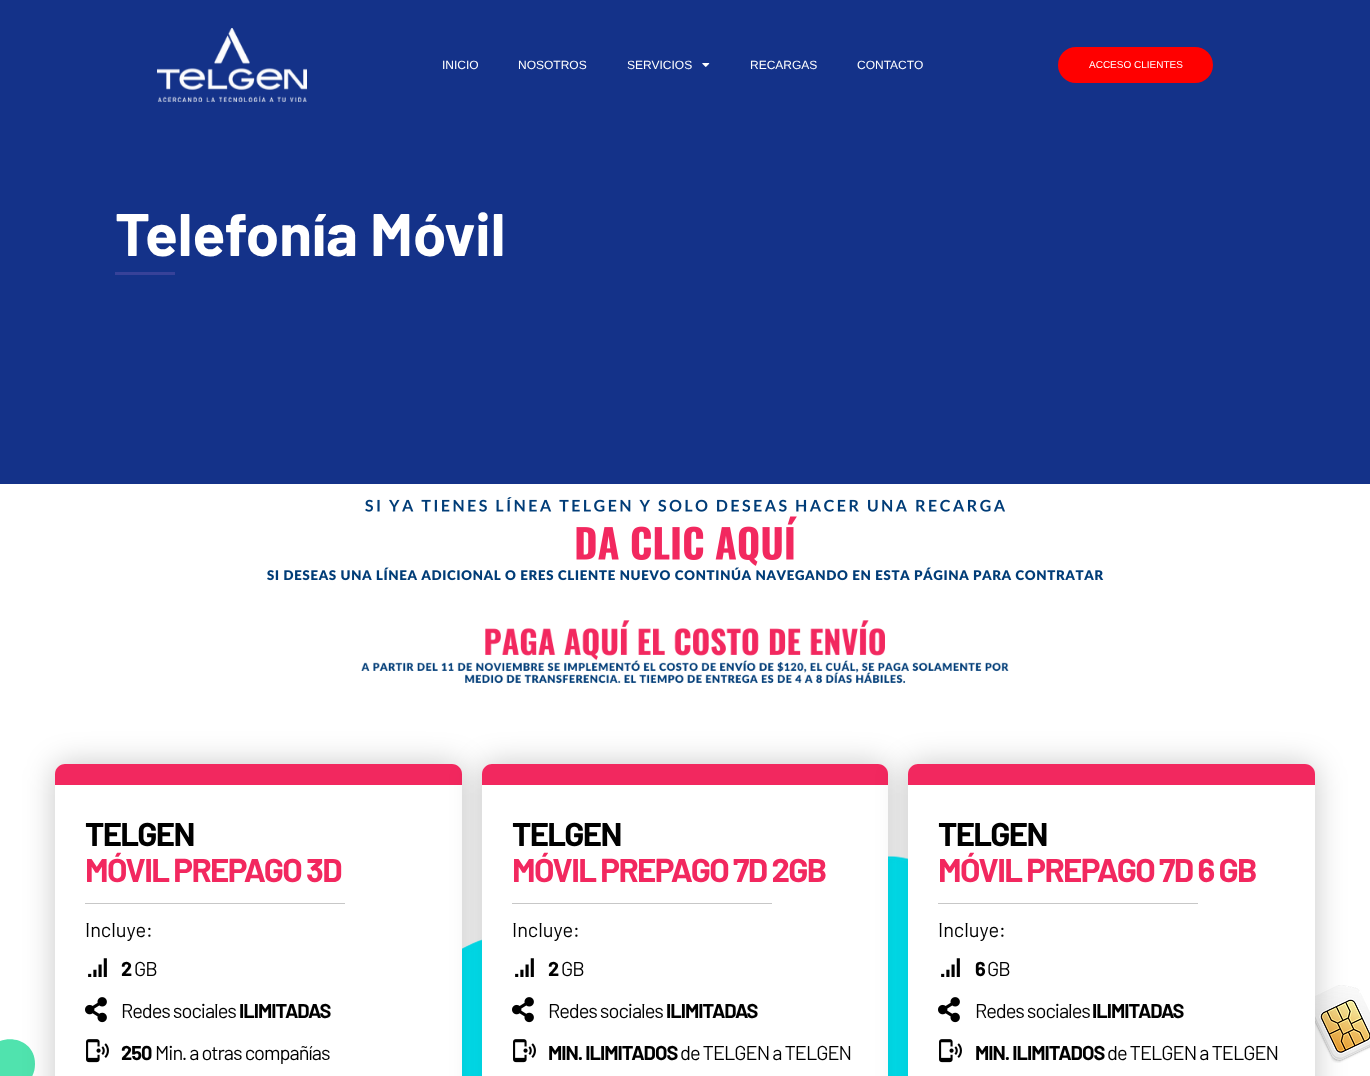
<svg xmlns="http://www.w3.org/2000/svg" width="1370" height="1076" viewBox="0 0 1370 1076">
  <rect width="100%" height="100%" fill="rgb(255,255,255)"/>
  <rect x="0" y="0" width="1370" height="484" fill="rgb(20,50,137)"/>
  <image x="157" y="28" width="150" height="74" href="pic1.png"/>
  <g font-family="Liberation Sans" font-size="12" fill="rgb(255,255,255)">
    <text x="442" y="69">INICIO</text>
    <text x="518" y="69">NOSOTROS</text>
    <text x="627" y="69">SERVICIOS</text>
  </g>
  <image x="702" y="63" width="8" height="4" href="pic2.png"/>
  <g font-family="Liberation Sans" font-size="12" fill="rgb(255,255,255)">
    <text x="750" y="69">RECARGAS</text>
    <text x="857" y="69">CONTACTO</text>
  </g>
  <rect x="1058" y="47" width="155" height="36" rx="18" fill="rgb(255,0,0)"/>
  <text x="1089" y="68" font-family="Liberation Sans" font-size="10" fill="rgb(255,255,255)">ACCESO CLIENTES</text>
  <text x="115" y="256" font-family="Barlow" font-size="60" font-weight="bold" fill="rgb(255,255,255)">Telefonía Móvil</text>
  <rect x="115" y="272" width="60" height="3" fill="rgb(55,66,153)"/>
  <image x="267" y="497" width="837" height="84" href="pic3.png"/>
  <image x="361" y="620" width="648" height="64" href="pic4.png"/>
  <image x="462" y="856" width="446" height="220" href="pic5.png"/>
  <path d="M35 1064C35 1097-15 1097-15 1064C-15 1031 35 1031 35 1064Z" fill="rgb(80,227,174)"/>
  <rect x="55" y="764" width="407" height="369" rx="10" fill="rgba(0,0,0,0.22)" filter="blur(15.5px)"/>
  <rect x="55" y="764" width="407" height="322" rx="10" fill="rgb(255,255,255)"/>
  <path d="M65 764H452C457.5 764 462 768.5 462 774V785H55V774C55 768.5 59.5 764 65 764Z" fill="rgb(242,40,95)"/>
  <text x="85" y="846" font-family="Barlow" font-size="33" font-weight="bold" letter-spacing="-1.65" fill="rgb(0,0,0)">TELGEN</text>
  <text x="85" y="882" font-family="Barlow" font-size="33" font-weight="bold" letter-spacing="-1.65" fill="rgb(242,40,95)">MÓVIL PREPAGO 3D</text>
  <rect x="85" y="903" width="260" height="1" fill="rgb(199,199,199)"/>
  <text x="85" y="937" font-family="Barlow" font-size="20" fill="rgb(0,0,0)">Incluye:</text>
  <image x="88" y="958" width="19" height="19" href="pic6.png"/>
  <text x="121" y="976" font-family="Barlow" font-size="20" font-weight="bold" letter-spacing="-1" fill="rgb(0,0,0)">2</text>
  <text x="134" y="976" font-family="Barlow" font-size="20" letter-spacing="-1" fill="rgb(0,0,0)">GB</text>
  <image x="85" y="997" width="22" height="26" href="pic7.png"/>
  <text x="121" y="1018" font-family="Barlow" font-size="20" letter-spacing="-1" fill="rgb(0,0,0)">Redes sociales</text>
  <text x="239" y="1018" font-family="Barlow" font-size="20" font-weight="bold" letter-spacing="-1" fill="rgb(0,0,0)">ILIMITADAS</text>
  <image x="86" y="1039" width="23" height="24" href="pic8.png"/>
  <text x="121" y="1060" font-family="Barlow" font-size="20" font-weight="bold" letter-spacing="-1" fill="rgb(0,0,0)">250</text>
  <text x="155" y="1060" font-family="Barlow" font-size="20" letter-spacing="-1" fill="rgb(0,0,0)">Min. a otras compañías</text>
  <rect x="482" y="764" width="406" height="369" rx="10" fill="rgba(0,0,0,0.22)" filter="blur(15.5px)"/>
  <rect x="482" y="764" width="406" height="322" rx="10" fill="rgb(255,255,255)"/>
  <path d="M492 764H878C883.5 764 888 768.5 888 774V785H482V774C482 768.5 486.5 764 492 764Z" fill="rgb(242,40,95)"/>
  <text x="512" y="846" font-family="Barlow" font-size="33" font-weight="bold" letter-spacing="-1.65" fill="rgb(0,0,0)">TELGEN</text>
  <text x="512" y="882" font-family="Barlow" font-size="33" font-weight="bold" letter-spacing="-1.65" fill="rgb(242,40,95)">MÓVIL PREPAGO 7D 2GB</text>
  <rect x="512" y="903" width="260" height="1" fill="rgb(199,199,199)"/>
  <text x="512" y="937" font-family="Barlow" font-size="20" fill="rgb(0,0,0)">Incluye:</text>
  <image x="515" y="958" width="19" height="19" href="pic6.png"/>
  <text x="548" y="976" font-family="Barlow" font-size="20" font-weight="bold" letter-spacing="-1" fill="rgb(0,0,0)">2</text>
  <text x="561" y="976" font-family="Barlow" font-size="20" letter-spacing="-1" fill="rgb(0,0,0)">GB</text>
  <image x="512" y="997" width="22" height="26" href="pic7.png"/>
  <text x="548" y="1018" font-family="Barlow" font-size="20" letter-spacing="-1" fill="rgb(0,0,0)">Redes sociales</text>
  <text x="666" y="1018" font-family="Barlow" font-size="20" font-weight="bold" letter-spacing="-1" fill="rgb(0,0,0)">ILIMITADAS</text>
  <image x="513" y="1039" width="23" height="24" href="pic8.png"/>
  <text x="548" y="1060" font-family="Barlow" font-size="20" font-weight="bold" letter-spacing="-1" fill="rgb(0,0,0)">MIN. ILIMITADOS</text>
  <text x="680" y="1060" font-family="Barlow" font-size="20" letter-spacing="-1" fill="rgb(0,0,0)">de TELGEN a TELGEN</text>
  <image x="1315" y="985" width="55" height="78" href="pic9.png"/>
  <rect x="908" y="764" width="407" height="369" rx="10" fill="rgba(0,0,0,0.22)" filter="blur(15.5px)"/>
  <rect x="908" y="764" width="407" height="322" rx="10" fill="rgb(255,255,255)"/>
  <path d="M918 764H1305C1310.5 764 1315 768.5 1315 774V785H908V774C908 768.5 912.5 764 918 764Z" fill="rgb(242,40,95)"/>
  <text x="938" y="846" font-family="Barlow" font-size="33" font-weight="bold" letter-spacing="-1.65" fill="rgb(0,0,0)">TELGEN</text>
  <text x="938" y="882" font-family="Barlow" font-size="33" font-weight="bold" letter-spacing="-1.65" fill="rgb(242,40,95)">MÓVIL PREPAGO 7D 6 GB</text>
  <rect x="938" y="903" width="260" height="1" fill="rgb(199,199,199)"/>
  <text x="938" y="937" font-family="Barlow" font-size="20" fill="rgb(0,0,0)">Incluye:</text>
  <image x="941" y="958" width="19" height="19" href="pic6.png"/>
  <text x="975" y="976" font-family="Barlow" font-size="20" font-weight="bold" letter-spacing="-1" fill="rgb(0,0,0)">6</text>
  <text x="987" y="976" font-family="Barlow" font-size="20" letter-spacing="-1" fill="rgb(0,0,0)">GB</text>
  <image x="938" y="997" width="22" height="26" href="pic7.png"/>
  <text x="975" y="1018" font-family="Barlow" font-size="20" letter-spacing="-1" fill="rgb(0,0,0)">Redes sociales</text>
  <text x="1092" y="1018" font-family="Barlow" font-size="20" font-weight="bold" letter-spacing="-1" fill="rgb(0,0,0)">ILIMITADAS</text>
  <image x="939" y="1039" width="23" height="24" href="pic8.png"/>
  <text x="975" y="1060" font-family="Barlow" font-size="20" font-weight="bold" letter-spacing="-1" fill="rgb(0,0,0)">MIN. ILIMITADOS</text>
  <text x="1107" y="1060" font-family="Barlow" font-size="20" letter-spacing="-1" fill="rgb(0,0,0)">de TELGEN a TELGEN</text>
</svg>
